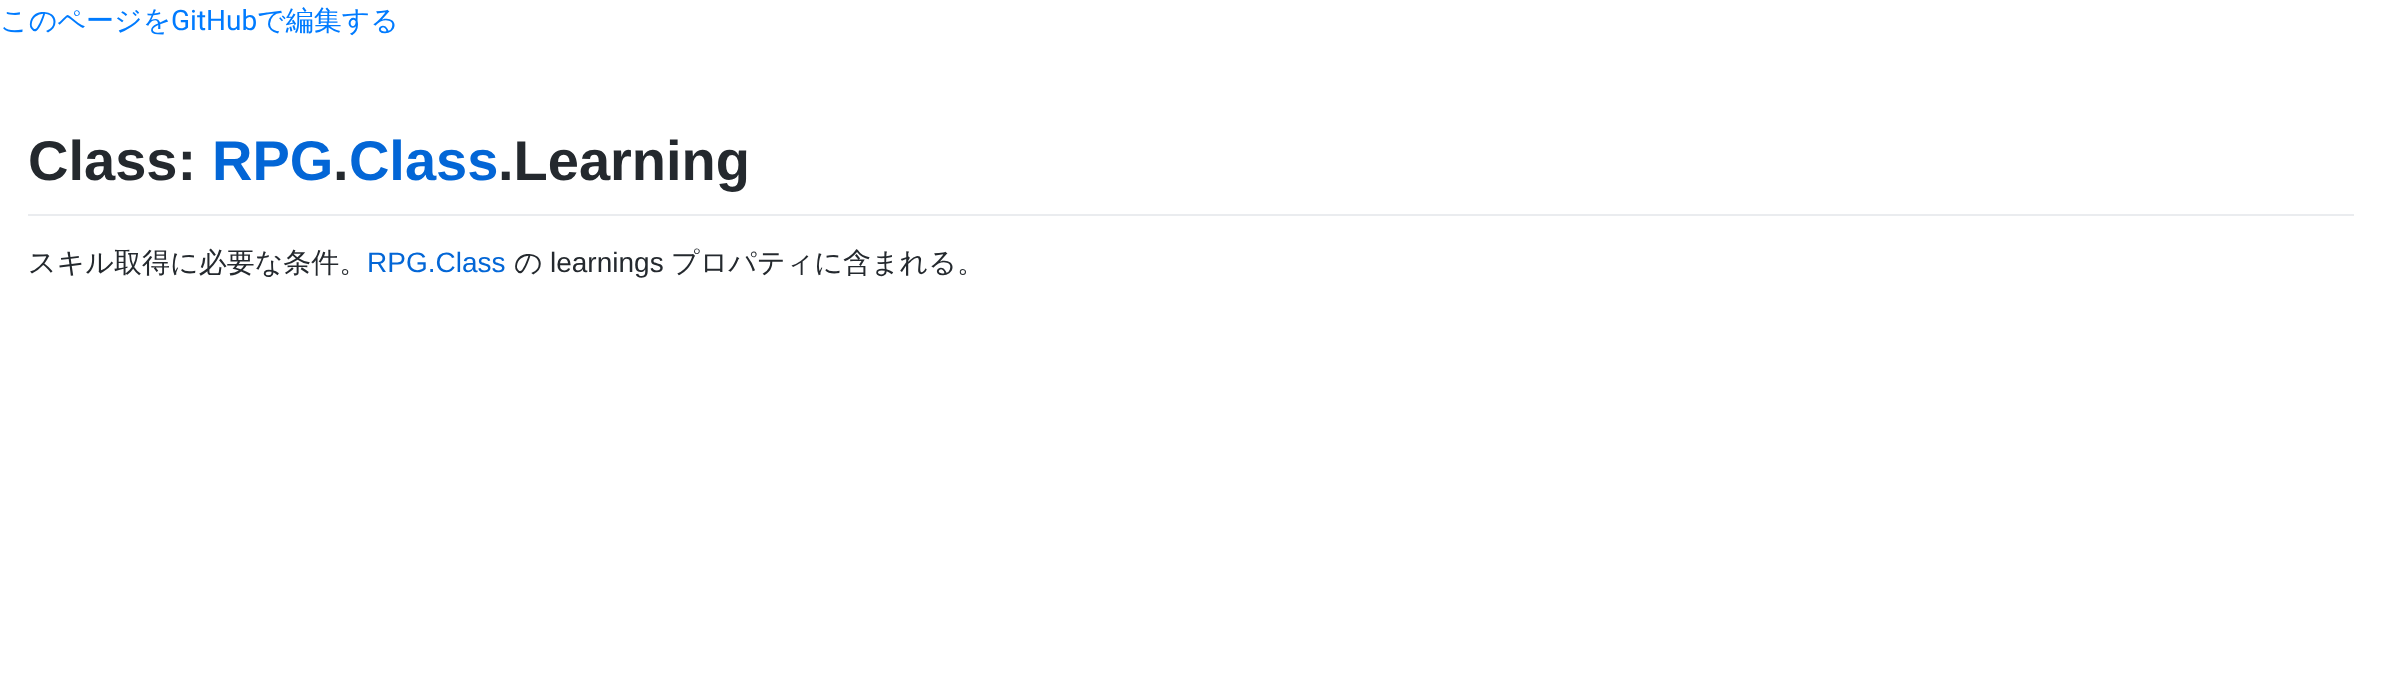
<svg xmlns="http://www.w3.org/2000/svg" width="2381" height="683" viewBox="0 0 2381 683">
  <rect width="100%" height="100%" fill="rgb(255,255,255)"/>
  <text x="0" y="30" font-family="WenQuanYi Zen Hei" font-size="28" font-weight="500" fill="rgb(0,123,255)">このページを</text>
  <text x="171" y="30" font-family="Roboto" font-size="28" fill="rgb(0,123,255)">GitHub</text>
  <text x="257" y="30" font-family="WenQuanYi Zen Hei" font-size="28" font-weight="500" fill="rgb(0,123,255)">で編集する</text>
  <rect x="28" y="214" width="2326" height="2" fill="rgb(234,236,239)"/>
  <text x="28" y="180" font-family="Liberation Sans" font-size="56" font-weight="bold" fill="rgb(36,41,46)">Class:</text>
  <text x="212" y="180" font-family="Liberation Sans" font-size="56" font-weight="bold" fill="rgb(3,102,214)">RPG Class</text>
  <g font-family="Liberation Sans" font-size="56" font-weight="bold" fill="rgb(36,41,46)">
    <text x="498" y="180">.Learning</text>
    <text x="333" y="180">.</text>
  </g>
  <text x="28" y="272" font-family="WenQuanYi Zen Hei" font-size="28" font-weight="500" fill="rgb(36,41,46)">スキル取得に必要な条件。</text>
  <text x="367" y="272" font-family="Liberation Sans" font-size="28" fill="rgb(3,102,214)">RPG.Class</text>
  <text x="514" y="272" font-family="WenQuanYi Zen Hei" font-size="28" font-weight="500" fill="rgb(36,41,46)">の</text>
  <text x="550" y="272" font-family="Liberation Sans" font-size="28" fill="rgb(36,41,46)">learnings</text>
  <text x="671" y="272" font-family="WenQuanYi Zen Hei" font-size="28" font-weight="500" fill="rgb(36,41,46)">プロパティに含まれる。</text>
</svg>
